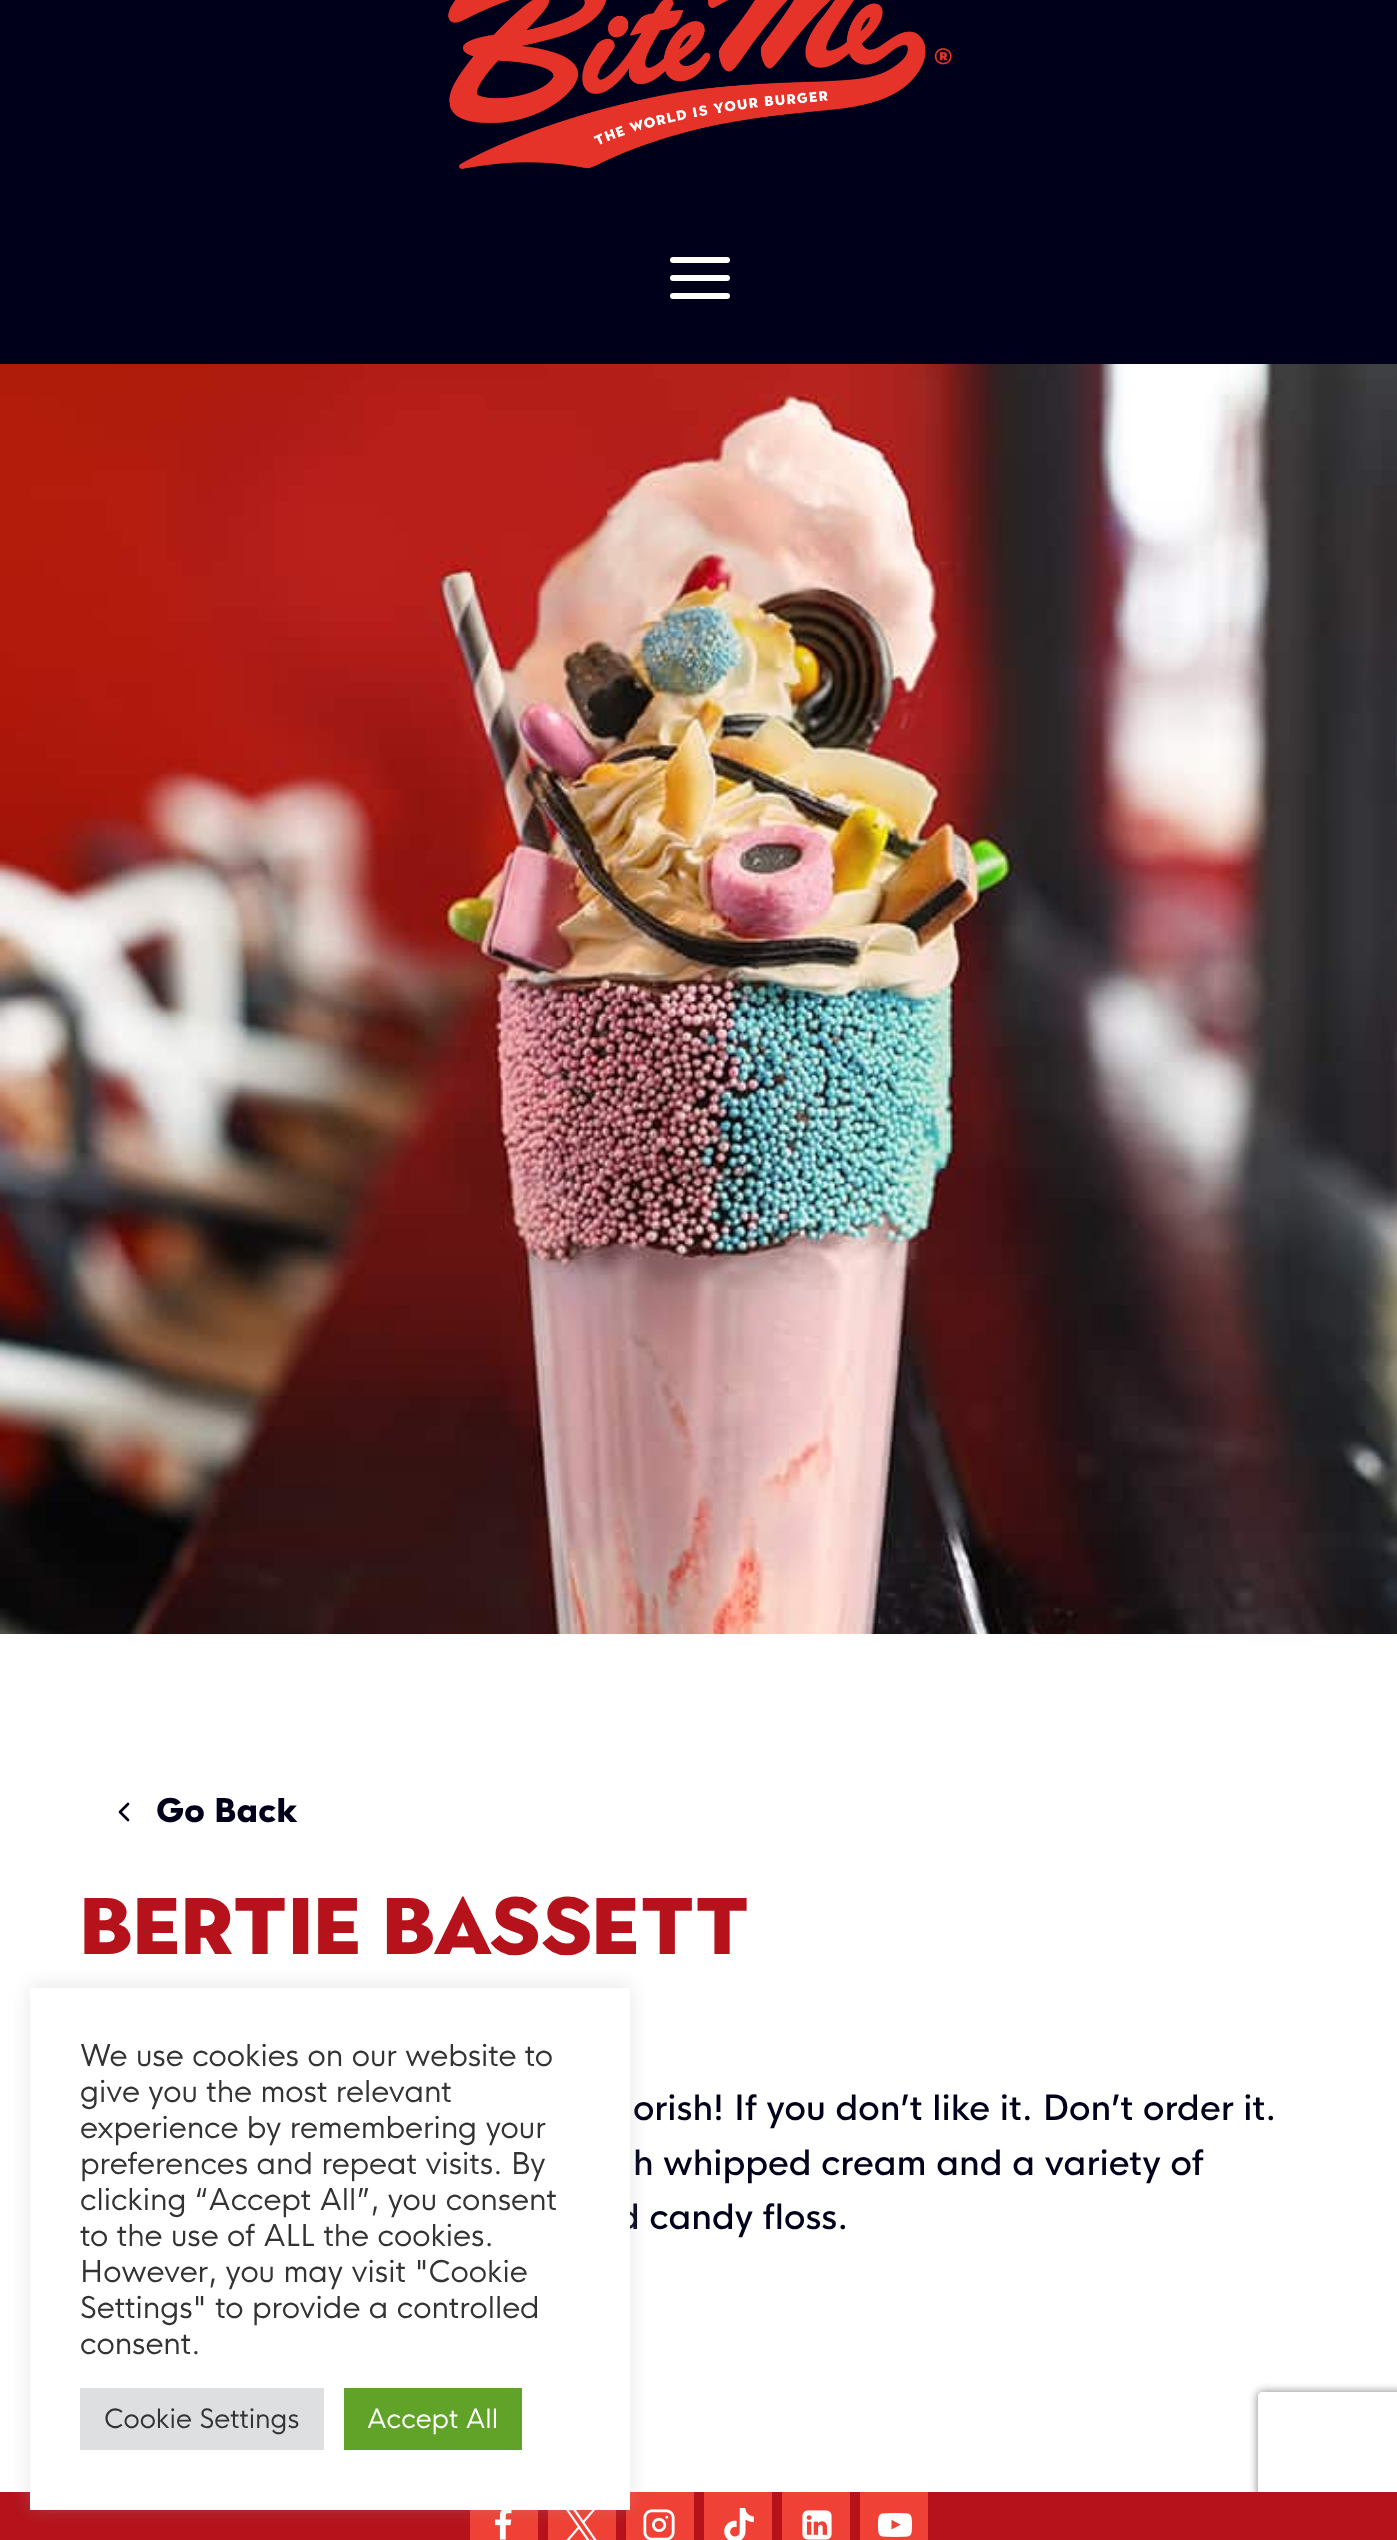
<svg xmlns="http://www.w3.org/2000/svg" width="1397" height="2540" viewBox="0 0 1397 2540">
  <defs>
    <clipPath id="clip1"><path d="M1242 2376H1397V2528H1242ZM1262 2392H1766C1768 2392 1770 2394 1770 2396V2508C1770 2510 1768 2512 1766 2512H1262C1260 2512 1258 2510 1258 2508V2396C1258 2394 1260 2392 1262 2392Z" clip-rule="evenodd"/></clipPath>
  </defs>
  <rect width="100%" height="100%" fill="rgb(255,255,255)"/>
  <rect x="0" y="0" width="1397" height="364" fill="rgb(0,0,27)"/>
  <image x="448" y="0" width="504" height="169" href="pic1.png"/>
  <path d="M673 278H727M673 260H727M673 296H727" fill="none" stroke="rgb(255,255,255)" stroke-width="6" stroke-linecap="round" stroke-linejoin="round"/>
  <image x="0" y="364" width="1397" height="1270" href="pic2.png"/>
  <path d="M128 1820L120 1812L128 1804" fill="none" stroke="rgb(0,0,27)" stroke-width="2.7" stroke-linecap="round" stroke-linejoin="round"/>
  <text x="156" y="1822" font-family="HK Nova" font-size="32" font-weight="900" fill="rgb(0,0,27)">Go Back</text>
  <text x="80" y="1954" font-family="'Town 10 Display'" font-size="80" font-weight="900" fill="rgb(181,18,27)">bertie bassett</text>
  <g font-family="HK Nova" font-size="34" font-weight="500" fill="rgb(0,0,27)">
    <text>
      <tspan x="633" y="2120">orish! If you don’t like it. Don’t order it.</tspan>
      <tspan x="633" y="2175">h whipped cream and a variety of</tspan>
    </text>
    <text x="617" y="2229">d candy floss.</text>
  </g>
  <g clip-path="url(#clip1)">
    <rect x="1258" y="2392" width="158" height="120" rx="4" fill="rgb(128,128,128)" filter="blur(5px)"/>
  </g>
  <rect x="0" y="2492" width="1397" height="48" fill="rgb(181,18,27)"/>
  <rect x="470" y="2510" width="68" height="30" fill="rgb(239,65,53)"/>
  <image x="495" y="2510" width="17" height="30" href="pic3.png"/>
  <rect x="548" y="2510" width="68" height="30" fill="rgb(239,65,53)"/>
  <image x="566" y="2510" width="31" height="30" href="pic4.png"/>
  <rect x="626" y="2492" width="68" height="48" fill="rgb(239,65,53)"/>
  <image x="643" y="2509" width="32" height="31" href="pic5.png"/>
  <rect x="704" y="2492" width="68" height="48" fill="rgb(239,65,53)"/>
  <image x="724" y="2508" width="30" height="32" href="pic6.png"/>
  <rect x="782" y="2492" width="68" height="48" fill="rgb(239,65,53)"/>
  <image x="802" y="2510" width="30" height="30" href="pic7.png"/>
  <rect x="860" y="2492" width="68" height="48" fill="rgb(239,65,53)"/>
  <image x="878" y="2513" width="34" height="24" href="pic8.png"/>
  <rect x="30" y="1986" width="600" height="522" fill="rgba(172,171,171,0.3)" filter="blur(10px)"/>
  <rect x="30" y="1988" width="600" height="522" fill="rgb(255,255,255)"/>
  <g font-family="HK Nova" font-size="29.3" fill="rgb(51,51,51)">
    <text>
      <tspan x="80" y="2066">We use cookies on our website to</tspan>
      <tspan x="80" y="2102">give you the most relevant</tspan>
      <tspan x="80" y="2138">experience by remembering your</tspan>
      <tspan x="80" y="2174">preferences and repeat visits. By</tspan>
      <tspan x="80" y="2210">clicking “Accept All”, you consent</tspan>
      <tspan x="80" y="2246">to the use of ALL the cookies.</tspan>
      <tspan x="80" y="2282">However, you may visit "Cookie</tspan>
      <tspan x="80" y="2318">Settings" to provide a controlled</tspan>
      <tspan x="80" y="2354">consent.</tspan>
    </text>
  </g>
  <rect x="80" y="2388" width="244" height="62" fill="rgb(222,223,224)"/>
  <text x="104" y="2428" font-family="HK Nova" font-size="26" fill="rgb(51,51,51)">Cookie Settings</text>
  <rect x="344" y="2388" width="178" height="62" fill="rgb(97,162,41)"/>
  <text x="367" y="2428" font-family="HK Nova" font-size="26" fill="rgb(255,255,255)">Accept All</text>
</svg>
